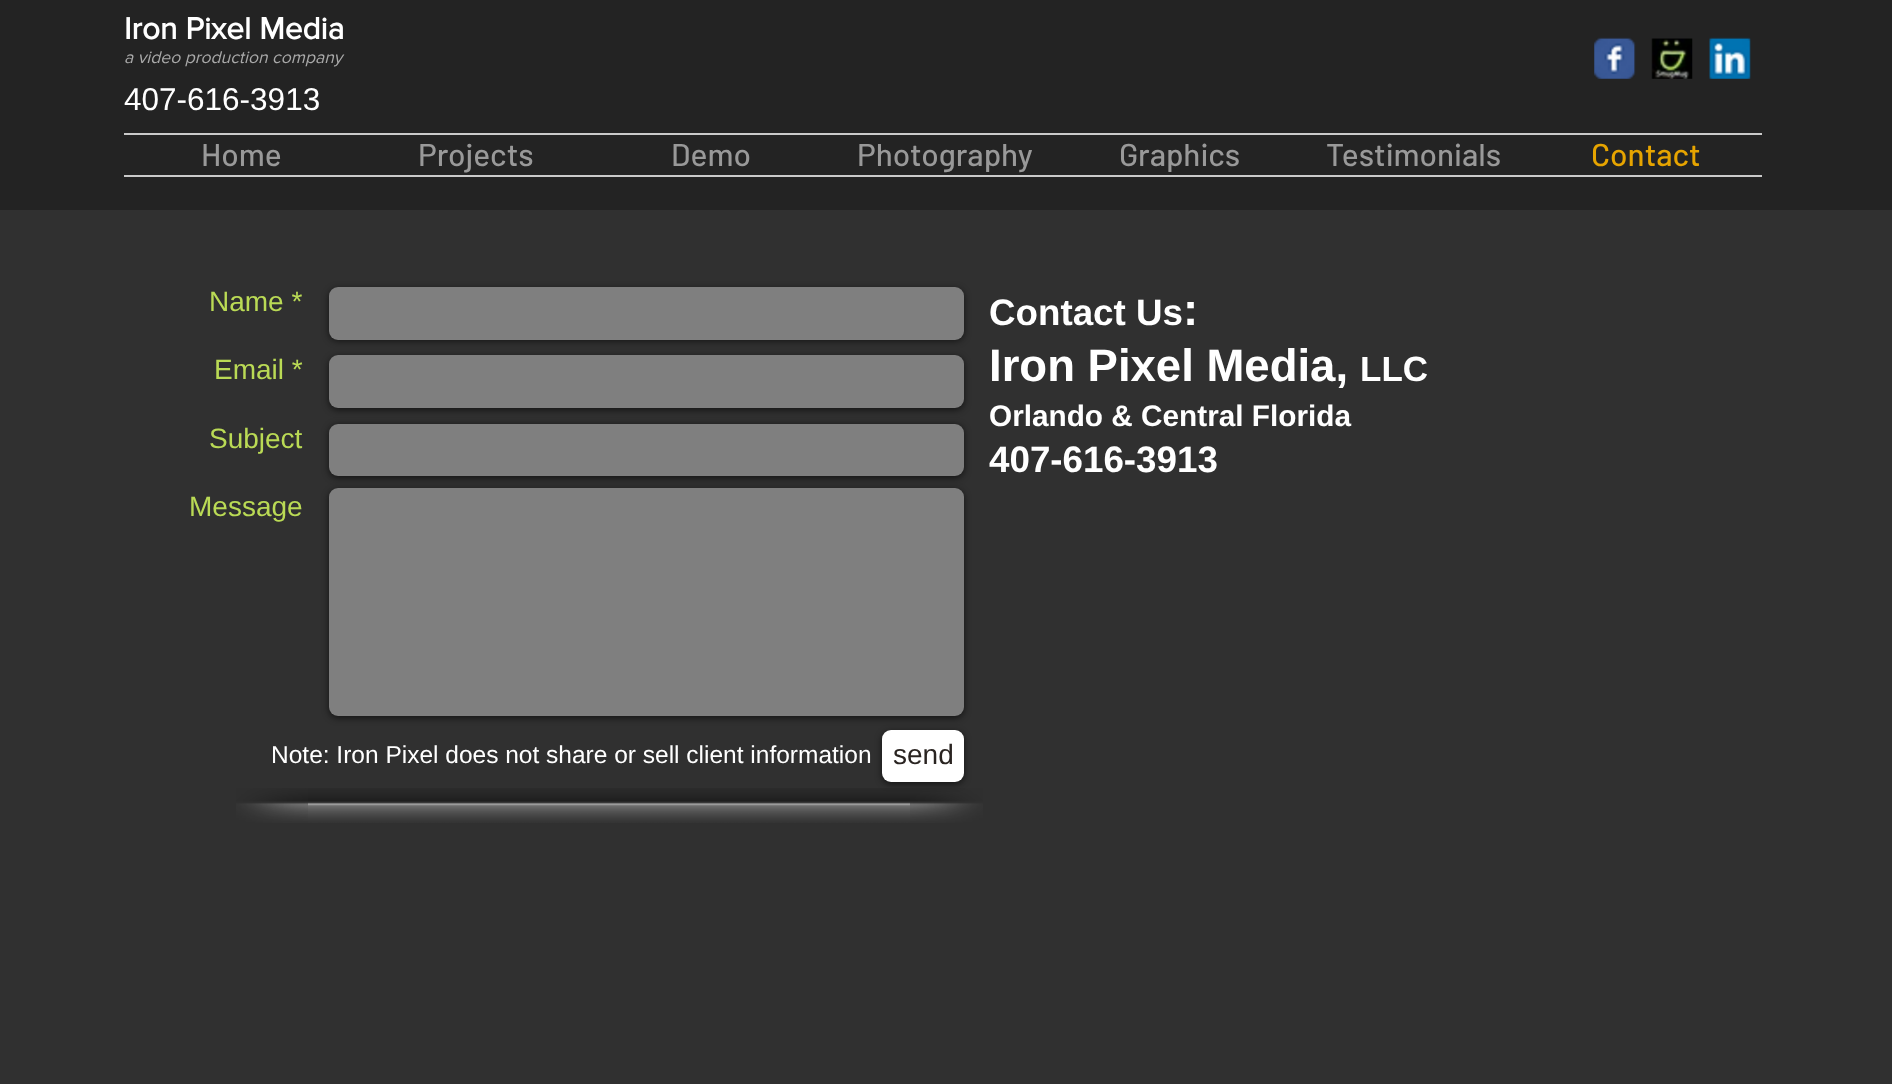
<svg xmlns="http://www.w3.org/2000/svg" width="1892" height="1084" viewBox="0 0 1892 1084">
  <rect width="100%" height="100%" fill="rgb(48,48,48)"/>
  <rect x="0" y="0" width="1892" height="210" fill="rgb(35,35,35)"/>
  <text x="124" y="39" font-family="'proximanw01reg'" font-size="31.5" font-weight="bold" fill="rgb(255,255,255)">Iron Pixel Media</text>
  <text x="124" y="63" font-family="'proximanw01reg'" font-size="17.5" font-style="italic" fill="rgb(169,169,169)">a video production company</text>
  <image x="1594" y="37" width="42" height="42" href="pic1.png"/>
  <image x="1651" y="38" width="42" height="41" href="pic2.png"/>
  <image x="1709" y="37" width="42" height="42" href="pic3.png"/>
  <text x="124" y="110" font-family="Liberation Sans" font-size="31.5" fill="rgb(255,255,255)">407-616-3913</text>
  <rect x="124" y="133" width="1638" height="2" fill="rgb(202,202,202)"/>
  <rect x="124" y="175" width="1638" height="2" fill="rgb(202,202,202)"/>
  <g font-family="Barlow" font-size="31.5" font-weight="500" fill="rgb(153,153,153)">
    <text x="201" y="166">Home</text>
    <text x="418" y="166">Projects</text>
    <text x="671" y="166">Demo</text>
    <text x="857" y="166">Photography</text>
    <text x="1119" y="166">Graphics</text>
    <text x="1326" y="166">Testimonials</text>
  </g>
  <text x="1591" y="166" font-family="Barlow" font-size="31.5" font-weight="500" fill="rgb(230,164,0)">Contact</text>
  <text x="209" y="311" font-family="Liberation Sans" font-size="28" fill="rgb(186,218,85)">Name *</text>
  <rect x="329" y="289" width="635" height="52" rx="9" fill="rgba(0,0,0,0.6)" filter="blur(3.5px)"/>
  <rect x="329" y="287" width="635" height="53" rx="9" fill="rgb(127,127,127)"/>
  <text x="214" y="379" font-family="Liberation Sans" font-size="28" fill="rgb(186,218,85)">Email *</text>
  <rect x="329" y="357" width="635" height="53" rx="9" fill="rgba(0,0,0,0.6)" filter="blur(3.5px)"/>
  <rect x="329" y="355" width="635" height="53" rx="9" fill="rgb(127,127,127)"/>
  <text x="209" y="448" font-family="Liberation Sans" font-size="28" fill="rgb(186,218,85)">Subject</text>
  <rect x="329" y="425" width="635" height="53" rx="9" fill="rgba(0,0,0,0.6)" filter="blur(3.5px)"/>
  <rect x="329" y="424" width="635" height="52" rx="9" fill="rgb(127,127,127)"/>
  <text x="189" y="516" font-family="Liberation Sans" font-size="28" fill="rgb(186,218,85)">Message</text>
  <rect x="329" y="490" width="635" height="228" rx="9" fill="rgba(0,0,0,0.6)" filter="blur(3.5px)"/>
  <rect x="329" y="488" width="635" height="228" rx="9" fill="rgb(127,127,127)"/>
  <image x="308" y="788" width="602" height="35" href="pic4.png"/>
  <image x="910" y="788" width="73" height="35" href="pic6.png"/>
  <rect x="882" y="732" width="82" height="52" rx="9" fill="rgba(0,0,0,0.6)" filter="blur(3.5px)"/>
  <rect x="882" y="730" width="82" height="52" rx="9" fill="rgb(255,255,255)"/>
  <text x="893" y="764" font-family="Liberation Sans" font-size="28" fill="rgb(42,36,33)">send</text>
  <text x="989" y="325" font-family="Liberation Sans" font-size="36.75" font-weight="bold" fill="rgb(255,255,255)">Contact Us</text>
  <g font-family="Liberation Sans" font-size="45.5" font-weight="bold" fill="rgb(255,255,255)">
    <text x="1183" y="325">:</text>
    <text x="989" y="381">Iron Pixel Media,</text>
  </g>
  <text x="1360" y="381" font-family="Liberation Sans" font-size="35" font-weight="bold" fill="rgb(255,255,255)">LLC</text>
  <text x="989" y="426" font-family="Liberation Sans" font-size="29.75" font-weight="bold" fill="rgb(255,255,255)">Orlando &amp; Central Florida</text>
  <text x="989" y="472" font-family="Liberation Sans" font-size="36.75" font-weight="bold" fill="rgb(255,255,255)">407-616-3913</text>
  <text x="271" y="763" font-family="Liberation Sans" font-size="24.5" fill="rgb(255,255,255)">Note: Iron Pixel does not share or sell client information</text>
  <image x="236" y="788" width="72" height="35" href="pic5.png"/>
</svg>
